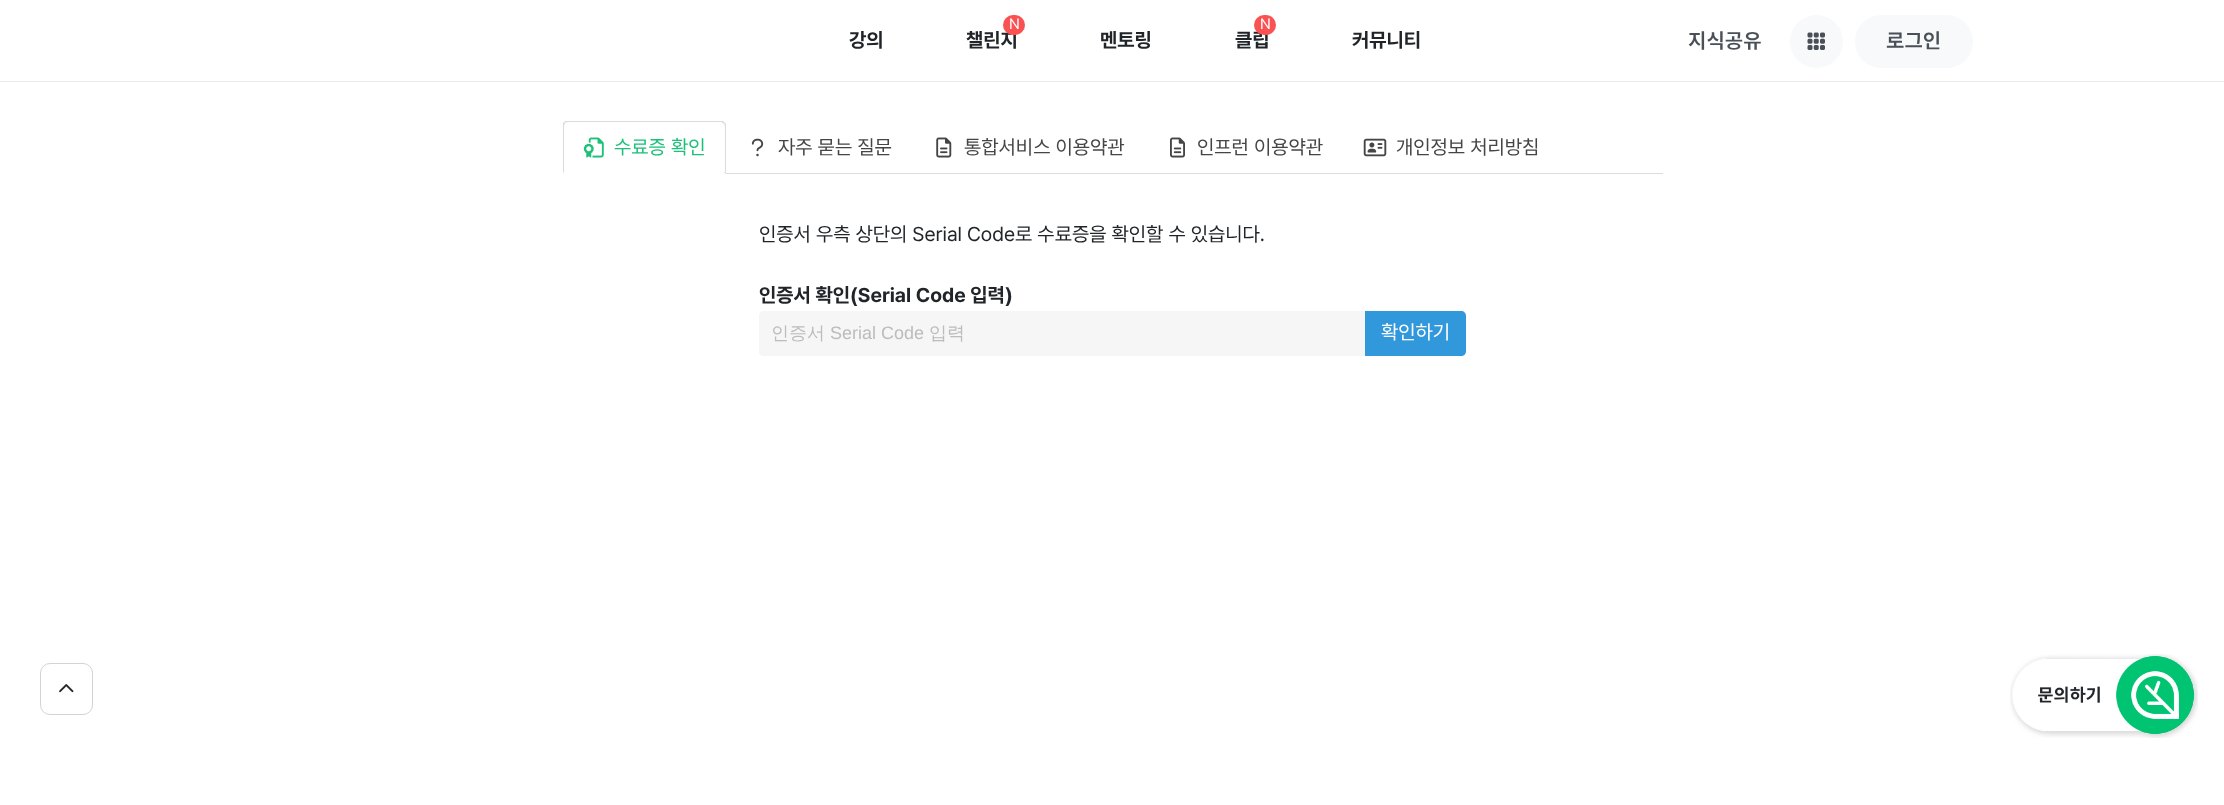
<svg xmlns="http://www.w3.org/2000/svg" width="2224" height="805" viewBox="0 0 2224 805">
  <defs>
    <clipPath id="clip1"><rect x="563" y="121" width="1100" height="53"/></clipPath>
  </defs>
  <rect width="100%" height="100%" fill="rgb(255,255,255)"/>
  <g font-family="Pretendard" font-size="20" font-weight="bold" fill="rgb(33,37,41)">
    <text x="849" y="47">강의</text>
    <text x="966" y="47">챌린지</text>
  </g>
  <rect x="1003" y="15" width="22" height="20" rx="10" fill="rgb(250,82,82)"/>
  <text x="1009" y="29" font-family="Pretendard" font-size="15" fill="rgb(255,255,255)">N</text>
  <g font-family="Pretendard" font-size="20" font-weight="bold" fill="rgb(33,37,41)">
    <text x="1100" y="47">멘토링</text>
    <text x="1235" y="47">클립</text>
  </g>
  <rect x="1254" y="15" width="22" height="20" rx="10" fill="rgb(250,82,82)"/>
  <text x="1260" y="29" font-family="Pretendard" font-size="15" fill="rgb(255,255,255)">N</text>
  <text x="1352" y="47" font-family="Pretendard" font-size="20" font-weight="bold" fill="rgb(33,37,41)">커뮤니티</text>
  <text x="1688" y="48" font-family="Noto Sans KR" font-size="20" font-weight="600" fill="rgb(73,80,87)">지식공유</text>
  <circle cx="1816.5" cy="41.5" r="26.5" fill="rgb(248,249,250)"/>
  <image x="1807" y="32" width="18" height="18" href="pic1.png"/>
  <rect x="1855" y="15" width="118" height="53" rx="26.5" fill="rgb(248,249,250)"/>
  <text x="1886" y="48" font-family="Noto Sans KR" font-size="20" font-weight="600" fill="rgb(73,80,87)">로그인</text>
  <rect x="0" y="81" width="2224" height="1" fill="rgb(233,236,239)"/>
  <rect x="40.5" y="663.5" width="52" height="51" rx="9.5" fill="none" stroke="rgb(206,212,218)"/>
  <image x="59" y="684" width="15" height="9" href="pic2.png"/>
  <image x="2010" y="654" width="188" height="84" href="pic3.png"/>
  <rect x="726" y="173" width="937" height="1" fill="rgb(219,219,219)"/>
  <g clip-path="url(#clip1)">
    <path d="M568 122C566 122 565 123 565 123L564 122C571 116 583 121 592 121H723L725 123L724 124C723 123 722 122 721 122Z" fill="rgb(219,219,219)"/>
  </g>
  <path d="M725 123C726 123 726 125 726 126V174L724 172H725V126L724 124Z" fill="rgb(219,219,219)"/>
  <g clip-path="url(#clip1)">
    <path d="M562 174V124L564 122L565 123L564 126V172Z" fill="rgb(219,219,219)"/>
  </g>
  <image x="583" y="137" width="21" height="21" href="pic4.png"/>
  <text x="614" y="154" font-family="Pretendard" font-size="20" fill="rgb(29,192,120)">수료증 확인</text>
  <image x="751" y="138" width="13" height="19" href="pic5.png"/>
  <text x="778" y="154" font-family="Pretendard" font-size="20" fill="rgb(69,69,69)">자주 묻는 질문</text>
  <image x="936" y="137" width="16" height="21" href="pic6.png"/>
  <text x="964" y="154" font-family="Pretendard" font-size="20" fill="rgb(69,69,69)">통합서비스 이용약관</text>
  <image x="1170" y="137" width="15" height="21" href="pic7.png"/>
  <text x="1197" y="154" font-family="Pretendard" font-size="20" fill="rgb(69,69,69)">인프런 이용약관</text>
  <image x="1363" y="138" width="24" height="19" href="pic8.png"/>
  <text x="1396" y="154" font-family="Pretendard" font-size="20" fill="rgb(69,69,69)">개인정보 처리방침</text>
  <text x="759" y="241" font-family="Pretendard" font-size="20" fill="rgb(33,37,41)">인증서 우측 상단의 Serial Code로 수료증을 확인할 수 있습니다.</text>
  <text x="759" y="302" font-family="Pretendard" font-size="20" font-weight="bold" fill="rgb(33,37,41)">인증서 확인(Serial Code 입력)</text>
  <path d="M763 311H1366V356H763C761 356 759 354 759 352V315C759 313 761 311 763 311Z" fill="rgb(246,246,246)"/>
  <text x="771" y="339" font-family="WenQuanYi Zen Hei" font-size="18" font-weight="500" fill="rgb(188,188,188)">인증서</text>
  <text x="830" y="339" font-family="Liberation Sans" font-size="18" fill="rgb(188,188,188)">Serial Code</text>
  <text x="929" y="339" font-family="WenQuanYi Zen Hei" font-size="18" font-weight="500" fill="rgb(188,188,188)">입력</text>
  <path d="M1365 311H1461C1464 311 1466 313 1466 316V351C1466 354 1464 356 1461 356H1365Z" fill="rgb(50,152,220)"/>
  <text x="1381" y="339" font-family="Pretendard" font-size="20" fill="rgb(255,255,255)">확인하기</text>
  <image x="2010" y="654" width="188" height="84" href="pic9.png"/>
</svg>
